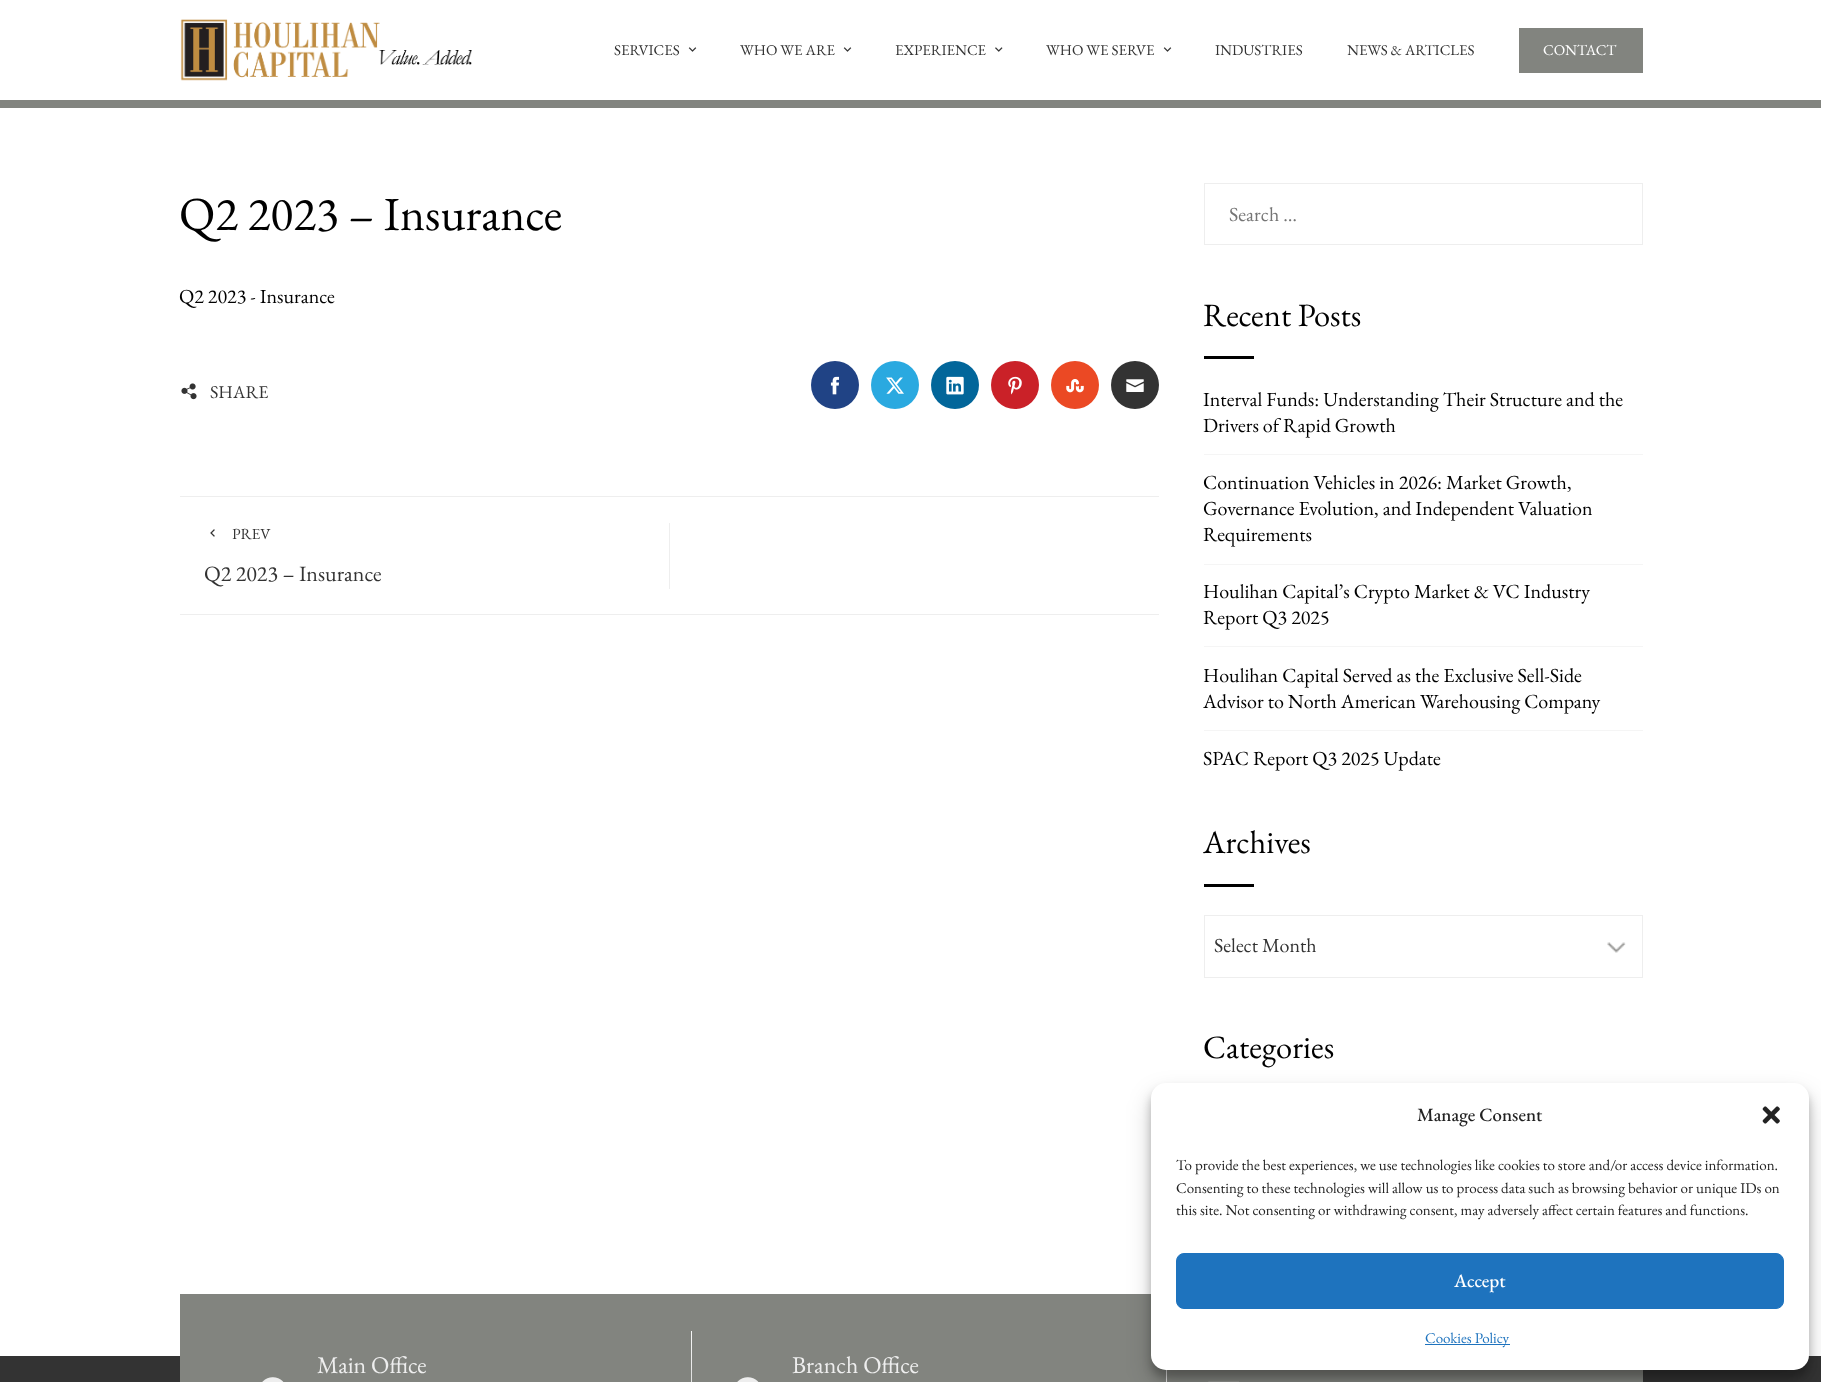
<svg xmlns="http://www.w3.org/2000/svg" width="1821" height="1382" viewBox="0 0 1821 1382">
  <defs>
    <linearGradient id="g1" gradientUnits="userSpaceOnUse" x1="692" y1="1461" x2="692" y2="1331"><stop offset="0" stop-color="rgb(247,247,247)"/><stop offset="0.1" stop-color="rgb(242,242,242)"/><stop offset="0.2" stop-color="rgb(237,237,237)"/><stop offset="0.3" stop-color="rgb(233,233,233)"/><stop offset="0.7" stop-color="rgb(225,225,225)"/><stop offset="0.7" stop-color="rgb(233,233,233)"/><stop offset="0.8" stop-color="rgb(237,237,237)"/><stop offset="0.9" stop-color="rgb(242,242,242)"/><stop offset="1" stop-color="rgb(247,247,247)"/></linearGradient>
    <linearGradient id="g2" gradientUnits="userSpaceOnUse" x1="1167" y1="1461" x2="1167" y2="1331"><stop offset="0" stop-color="rgb(247,247,247)"/><stop offset="0.1" stop-color="rgb(242,242,242)"/><stop offset="0.2" stop-color="rgb(237,237,237)"/><stop offset="0.3" stop-color="rgb(233,233,233)"/><stop offset="0.7" stop-color="rgb(225,225,225)"/><stop offset="0.7" stop-color="rgb(233,233,233)"/><stop offset="0.8" stop-color="rgb(237,237,237)"/><stop offset="0.9" stop-color="rgb(242,242,242)"/><stop offset="1" stop-color="rgb(247,247,247)"/></linearGradient>
  </defs>
  <rect width="100%" height="100%" fill="rgb(255,255,255)"/>
  <image x="180" y="19" width="292" height="62" href="pic1.png"/>
  <text x="614" y="55" font-family="EB Garamond" font-size="15" fill="rgb(51,51,51)">SERVICES</text>
  <image x="688" y="47" width="9" height="5" href="pic2.png"/>
  <text x="740" y="55" font-family="EB Garamond" font-size="15" fill="rgb(51,51,51)">WHO WE ARE</text>
  <image x="843" y="47" width="9" height="5" href="pic2.png"/>
  <text x="895" y="55" font-family="EB Garamond" font-size="15" fill="rgb(51,51,51)">EXPERIENCE</text>
  <image x="995" y="47" width="8" height="5" href="pic3.png"/>
  <text x="1046" y="55" font-family="EB Garamond" font-size="15" fill="rgb(51,51,51)">WHO WE SERVE</text>
  <image x="1163" y="47" width="9" height="5" href="pic2.png"/>
  <g font-family="EB Garamond" font-size="15" fill="rgb(51,51,51)">
    <text x="1215" y="55">INDUSTRIES</text>
    <text x="1347" y="55">NEWS &amp; ARTICLES</text>
  </g>
  <rect x="1519" y="28" width="124" height="45" fill="rgb(130,132,127)"/>
  <text x="1543" y="55" font-family="EB Garamond" font-size="15" fill="rgb(255,255,255)">CONTACT</text>
  <rect x="0" y="100" width="1821" height="8" fill="rgb(130,132,127)"/>
  <text x="179" y="230" font-family="EB Garamond" font-size="47.5" fill="rgb(0,0,0)">Q2 2023 – Insurance</text>
  <text x="179" y="303" font-family="EB Garamond" font-size="20" fill="rgb(0,0,0)">Q2 2023 - Insurance</text>
  <image x="181" y="383" width="16" height="17" href="pic4.png"/>
  <text x="210" y="398" font-family="EB Garamond" font-size="18" fill="rgb(51,51,51)">SHARE</text>
  <circle cx="835" cy="385" r="24" fill="rgb(32,67,133)"/>
  <image x="830" y="376" width="10" height="19" href="pic5.png"/>
  <circle cx="895" cy="385" r="24" fill="rgb(42,169,224)"/>
  <image x="886" y="377" width="18" height="17" href="pic6.png"/>
  <circle cx="955" cy="385" r="24" fill="rgb(2,102,154)"/>
  <image x="946" y="376" width="18" height="19" href="pic7.png"/>
  <circle cx="1015" cy="385" r="24" fill="rgb(202,33,40)"/>
  <image x="1008" y="376" width="14" height="19" href="pic8.png"/>
  <circle cx="1075" cy="385" r="24" fill="rgb(235,73,36)"/>
  <image x="1066" y="379" width="18" height="14" href="pic9.png"/>
  <circle cx="1135" cy="385" r="24" fill="rgb(51,51,51)"/>
  <image x="1126" y="379" width="18" height="13" href="pic10.png"/>
  <rect x="180" y="496" width="979" height="1" fill="rgb(238,238,238)"/>
  <rect x="180" y="614" width="979" height="1" fill="rgb(238,238,238)"/>
  <image x="210" y="529" width="5" height="8" href="pic11.png"/>
  <text x="232" y="539" font-family="EB Garamond" font-size="15.5" fill="rgb(51,51,51)">PREV</text>
  <text x="204" y="581" font-family="EB Garamond" font-size="22" fill="rgb(51,51,51)">Q2 2023 – Insurance</text>
  <rect x="669" y="523" width="1" height="66" fill="rgb(238,238,238)"/>
  <rect x="1204.5" y="183.5" width="438" height="61" fill="none" stroke="rgb(238,238,238)"/>
  <text x="1229" y="221" font-family="EB Garamond" font-size="20" fill="rgb(117,117,117)">Search …</text>
  <text x="1203" y="326" font-family="EB Garamond" font-size="32.5" fill="rgb(0,0,0)">Recent Posts</text>
  <rect x="1204" y="356" width="50" height="3" fill="rgb(0,0,0)"/>
  <rect x="1204" y="454" width="439" height="1" fill="rgb(245,245,245)"/>
  <g font-family="EB Garamond" font-size="20" fill="rgb(0,0,0)">
    <text>
      <tspan x="1203" y="406">Interval Funds: Understanding Their Structure and the</tspan>
      <tspan x="1203" y="432">Drivers of Rapid Growth</tspan>
    </text>
  </g>
  <rect x="1204" y="564" width="439" height="1" fill="rgb(245,245,245)"/>
  <g font-family="EB Garamond" font-size="20" fill="rgb(0,0,0)">
    <text>
      <tspan x="1203" y="489">Continuation Vehicles in 2026: Market Growth,</tspan>
      <tspan x="1203" y="515">Governance Evolution, and Independent Valuation</tspan>
      <tspan x="1203" y="541">Requirements</tspan>
    </text>
  </g>
  <rect x="1204" y="646" width="439" height="1" fill="rgb(245,245,245)"/>
  <g font-family="EB Garamond" font-size="20" fill="rgb(0,0,0)">
    <text>
      <tspan x="1203" y="598">Houlihan Capital’s Crypto Market &amp; VC Industry</tspan>
      <tspan x="1203" y="624">Report Q3 2025</tspan>
    </text>
  </g>
  <rect x="1204" y="730" width="439" height="1" fill="rgb(245,245,245)"/>
  <g font-family="EB Garamond" font-size="20" fill="rgb(0,0,0)">
    <text>
      <tspan x="1203" y="682">Houlihan Capital Served as the Exclusive Sell-Side</tspan>
      <tspan x="1203" y="708">Advisor to North American Warehousing Company</tspan>
    </text>
    <text x="1203" y="765">SPAC Report Q3 2025 Update</text>
  </g>
  <text x="1203" y="853" font-family="EB Garamond" font-size="32.5" fill="rgb(0,0,0)">Archives</text>
  <rect x="1204" y="884" width="50" height="3" fill="rgb(0,0,0)"/>
  <image x="1607" y="942" width="19" height="11" href="pic12.png"/>
  <rect x="1204.5" y="915.5" width="438" height="62" fill="none" stroke="rgb(238,238,238)"/>
  <text x="1214" y="952" font-family="EB Garamond" font-size="20" fill="rgb(51,51,51)">Select Month</text>
  <text x="1203" y="1058" font-family="EB Garamond" font-size="32.5" fill="rgb(0,0,0)">Categories</text>
  <rect x="0" y="1356" width="1821" height="26" fill="rgb(51,51,51)"/>
  <rect x="180" y="1294" width="1463" height="88" fill="rgb(130,132,127)"/>
  <text x="317" y="1373" font-family="EB Garamond" font-size="24" fill="rgb(238,238,238)">Main Office</text>
  <rect x="691" y="1331" width="1" height="51" fill="url(#g1)"/>
  <image x="262" y="1377" width="22" height="5" href="pic13.png"/>
  <text x="792" y="1373" font-family="EB Garamond" font-size="24" fill="rgb(238,238,238)">Branch Office</text>
  <image x="737" y="1377" width="22" height="5" href="pic13.png"/>
  <rect x="1166" y="1370" width="1" height="12" fill="url(#g2)"/>
  <image x="1208" y="1381" width="31" height="1" href="pic14.png"/>
  <rect x="1151" y="1090" width="658" height="288" rx="15" fill="rgba(0,0,0,0.23)" filter="blur(4px)"/>
  <rect x="1151" y="1095" width="658" height="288" rx="15" fill="rgba(0,0,0,0.19)" filter="blur(12.5px)"/>
  <rect x="1151" y="1083" width="658" height="287" rx="15" fill="rgb(255,255,255)"/>
  <text x="1417" y="1121" font-family="EB Garamond" font-size="18.75" font-weight="500" fill="rgb(34,34,34)">Manage Consent</text>
  <image x="1762" y="1106" width="18" height="18" href="pic15.png"/>
  <g font-family="EB Garamond" font-size="15" fill="rgb(34,34,34)">
    <text>
      <tspan x="1176" y="1170">To provide the best experiences, we use technologies like cookies to store and/or access device information.</tspan>
      <tspan x="1176" y="1193">Consenting to these technologies will allow us to process data such as browsing behavior or unique IDs on</tspan>
      <tspan x="1176" y="1215">this site. Not consenting or withdrawing consent, may adversely affect certain features and functions.</tspan>
    </text>
  </g>
  <rect x="1176.5" y="1253.5" width="607" height="55" rx="7.5" fill="rgb(30,115,190)" stroke="rgb(30,115,190)"/>
  <text x="1454" y="1287" font-family="EB Garamond" font-size="18.75" font-weight="500" fill="rgb(255,255,255)">Accept</text>
  <rect x="1425" y="1344" width="85" height="1" fill="rgb(30,115,190)"/>
  <text x="1425" y="1343" font-family="EB Garamond" font-size="15" fill="rgb(30,115,190)">Cookies Policy</text>
</svg>
